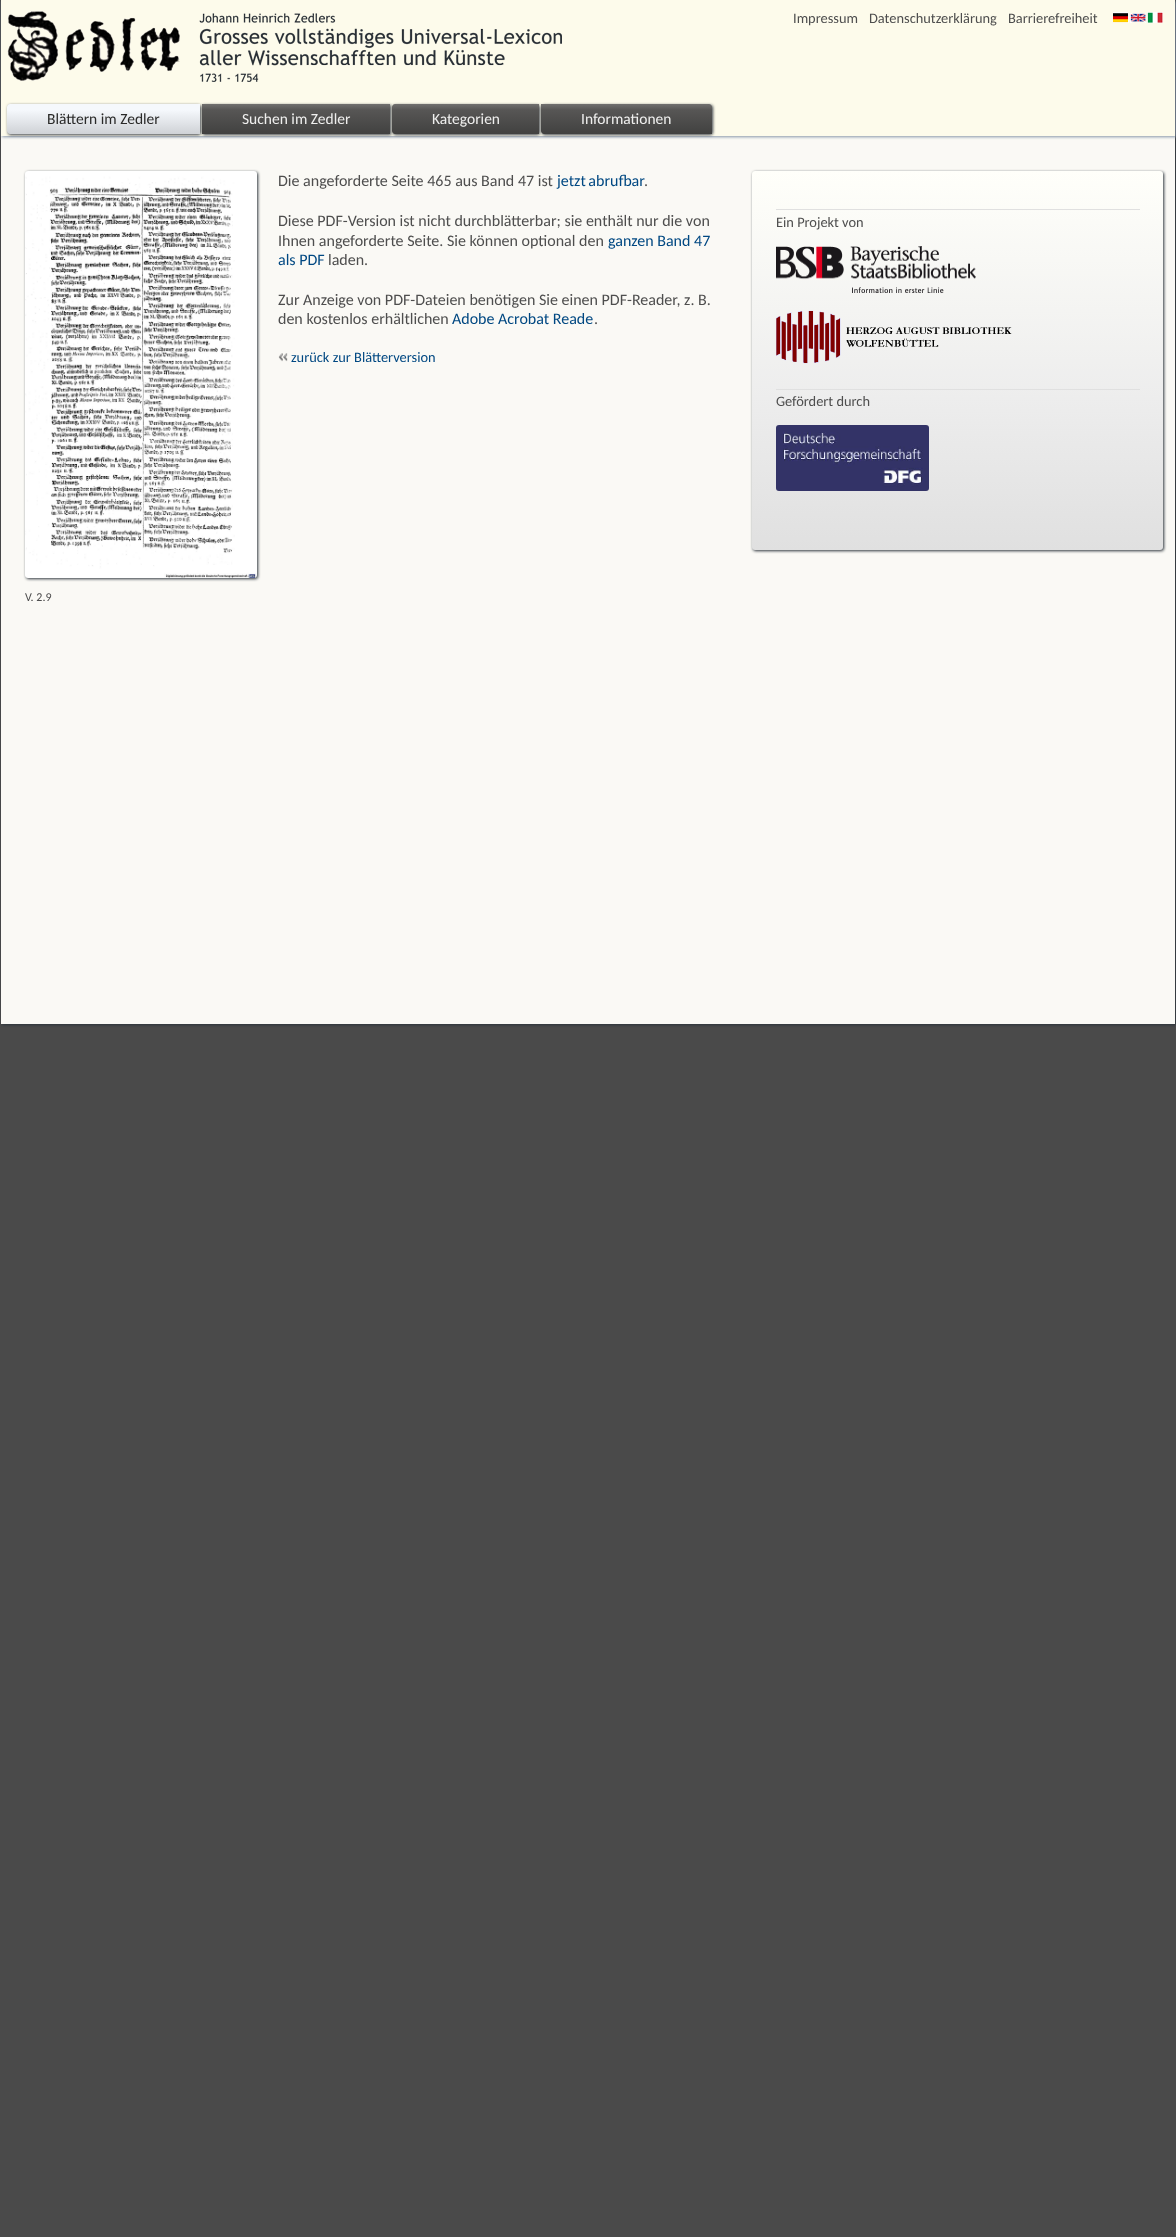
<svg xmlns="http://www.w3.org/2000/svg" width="1176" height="2237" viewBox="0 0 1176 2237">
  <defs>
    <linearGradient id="g1" gradientUnits="userSpaceOnUse" x1="7" y1="104" x2="7" y2="134"><stop offset="0" stop-color="rgb(245,248,252)"/><stop offset="0.2" stop-color="rgb(245,248,252)"/><stop offset="1" stop-color="rgb(207,210,214)"/></linearGradient>
    <linearGradient id="g2" gradientUnits="userSpaceOnUse" x1="202" y1="104" x2="202" y2="134"><stop offset="0" stop-color="rgb(113,112,111)"/><stop offset="0.2" stop-color="rgb(87,86,85)"/><stop offset="1" stop-color="rgb(65,65,64)"/></linearGradient>
    <linearGradient id="g3" gradientUnits="userSpaceOnUse" x1="392" y1="104" x2="392" y2="134"><stop offset="0" stop-color="rgb(113,112,111)"/><stop offset="0.2" stop-color="rgb(87,86,85)"/><stop offset="1" stop-color="rgb(65,65,64)"/></linearGradient>
    <linearGradient id="g4" gradientUnits="userSpaceOnUse" x1="541" y1="104" x2="541" y2="134"><stop offset="0" stop-color="rgb(113,112,111)"/><stop offset="0.2" stop-color="rgb(87,86,85)"/><stop offset="1" stop-color="rgb(65,65,64)"/></linearGradient>
    <linearGradient id="g5" gradientUnits="userSpaceOnUse" x1="752" y1="171" x2="752" y2="550"><stop offset="0" stop-color="rgb(255,255,250)"/><stop offset="0.6" stop-color="rgb(237,237,237)"/><stop offset="1" stop-color="rgb(224,224,224)"/></linearGradient>
  </defs>
  <rect width="100%" height="100%" fill="rgb(74,74,74)"/>
  <rect x="2" y="1" width="1174" height="1024" fill="rgb(43,50,59)" filter="blur(1.5px)"/>
  <rect x="1" y="136" width="1174" height="888" fill="rgb(250,249,245)"/>
  <rect x="2" y="1" width="1174" height="136" fill="rgb(133,148,167)" filter="blur(1.5px)"/>
  <rect x="1" y="0" width="1174" height="136" fill="rgb(253,251,235)"/>
  <image x="7" y="11" width="555" height="71" href="pic1.png"/>
  <g font-family="Carlito" font-size="14.4" fill="rgb(78,78,78)">
    <text x="793" y="23">Impressum</text>
    <text x="869" y="23">Datenschutzerklärung</text>
    <text x="1008" y="23">Barrierefreiheit</text>
  </g>
  <image x="1113" y="12" width="50" height="11" href="pic2.png"/>
  <rect x="8" y="105" width="193" height="30" rx="3" fill="rgba(43,50,59,0.93)" filter="blur(1.5px)"/>
  <path d="M10 104H200V134H10C8.5 134 7 132.5 7 131V107C7 105.5 8.5 104 10 104Z" fill="url(#g1)"/>
  <text x="47" y="124" font-family="Carlito" font-size="15.5" fill="rgb(42,42,41)">Blättern im Zedler</text>
  <rect x="203" y="105" width="188" height="30" fill="rgba(43,50,59,0.93)" filter="blur(1.5px)"/>
  <rect x="202" y="104" width="188" height="30" fill="url(#g2)"/>
  <text x="242" y="124" font-family="Carlito" font-size="15.5" fill="rgb(239,239,238)">Suchen im Zedler</text>
  <rect x="393" y="105" width="147" height="30" rx="3" fill="rgba(43,50,59,0.93)" filter="blur(1.5px)"/>
  <path d="M395 104H539V134H395C393.5 134 392 132.5 392 131V107C392 105.5 393.5 104 395 104Z" fill="url(#g3)"/>
  <text x="432" y="124" font-family="Carlito" font-size="15.5" fill="rgb(239,239,238)">Kategorien</text>
  <rect x="542" y="105" width="171" height="30" rx="3" fill="rgba(43,50,59,0.93)" filter="blur(1.5px)"/>
  <path d="M541 104H709C710.5 104 712 105.5 712 107V134H544C542.5 134 541 132.5 541 131Z" fill="url(#g4)"/>
  <text x="581" y="124" font-family="Carlito" font-size="15.5" fill="rgb(239,239,238)">Informationen</text>
  <rect x="26" y="172" width="232" height="407" rx="3" fill="rgb(43,50,59)" filter="blur(1.5px)"/>
  <image x="25" y="171" width="232" height="407" href="pic3.png"/>
  <text x="278" y="186" font-family="Carlito" font-size="16" fill="rgb(78,78,78)">Die angeforderte Seite 465 aus Band 47 ist</text>
  <text x="557" y="186" word-spacing="-1" font-family="Carlito" font-size="16" fill="rgb(0,72,130)">jetzt abrufbar</text>
  <g font-family="Carlito" font-size="16" fill="rgb(78,78,78)">
    <text x="644" y="186">.</text>
    <text>
      <tspan x="278" y="226">Diese PDF-Version ist nicht durchblätterbar; sie enthält nur die von</tspan>
      <tspan x="278" y="246">Ihnen angeforderte Seite. Sie können optional den</tspan>
    </text>
  </g>
  <g font-family="Carlito" font-size="16" fill="rgb(0,72,130)">
    <text x="608" y="246">ganzen Band 47</text>
    <text x="278" y="265">als PDF</text>
  </g>
  <g font-family="Carlito" font-size="16" fill="rgb(78,78,78)">
    <text x="328" y="265">laden.</text>
    <text>
      <tspan x="278" y="305">Zur Anzeige von PDF-Dateien benötigen Sie einen PDF-Reader, z. B.</tspan>
      <tspan x="278" y="324">den kostenlos erhältlichen</tspan>
    </text>
  </g>
  <text x="452" y="324" font-family="Carlito" font-size="16" fill="rgb(0,72,130)">Adobe Acrobat Reade</text>
  <text x="594" y="324" font-family="Carlito" font-size="16" fill="rgb(78,78,78)">.</text>
  <image x="278" y="353" width="10" height="9" href="pic4.png"/>
  <text x="291" y="362" font-family="Carlito" font-size="14.4" fill="rgb(0,72,130)">zurück zur Blätterversion</text>
  <text x="25" y="601" font-family="Carlito" font-size="12" fill="rgb(78,78,78)">V. 2.9</text>
  <rect x="753" y="172" width="411" height="379" rx="3" fill="rgb(43,50,59)" filter="blur(1.5px)"/>
  <rect x="752" y="171" width="411" height="379" rx="3" fill="url(#g5)"/>
  <rect x="776" y="209" width="364" height="1" fill="rgb(224,224,224)"/>
  <text x="776" y="227" font-family="Carlito" font-size="14.4" fill="rgb(78,78,78)">Ein Projekt von</text>
  <image x="776" y="246" width="200" height="47" href="pic5.png"/>
  <image x="776" y="310" width="236" height="54" href="pic6.png"/>
  <rect x="776" y="389" width="364" height="1" fill="rgb(224,224,224)"/>
  <text x="776" y="406" font-family="Carlito" font-size="14.4" fill="rgb(78,78,78)">Gefördert durch</text>
  <image x="776" y="425" width="153" height="66" href="pic7.png"/>
</svg>
